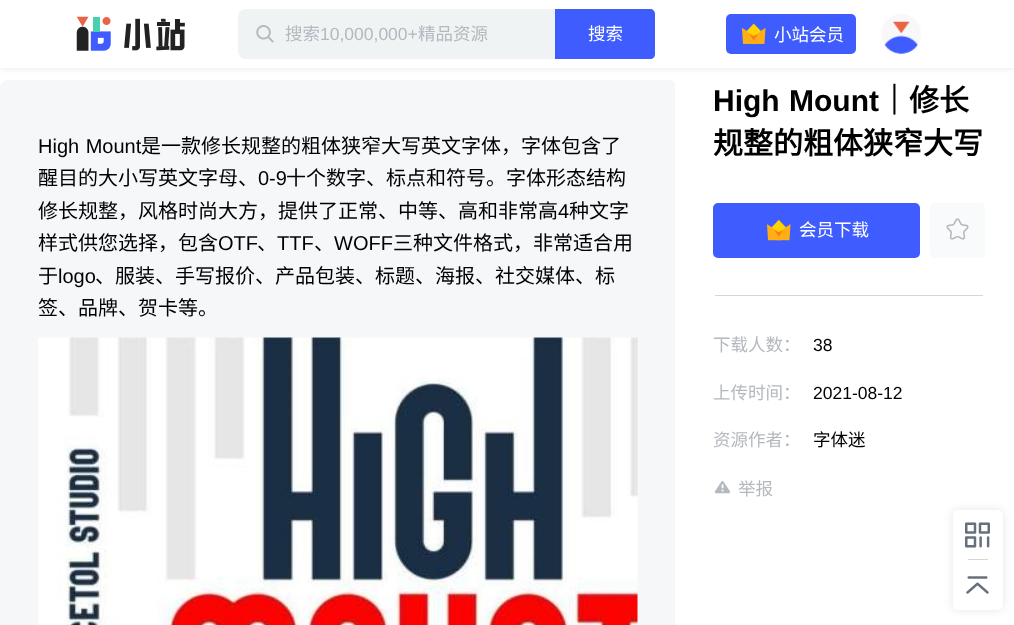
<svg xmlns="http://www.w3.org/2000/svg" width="1014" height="625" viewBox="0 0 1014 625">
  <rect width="100%" height="100%" fill="rgb(255,255,255)"/>
  <rect x="0" y="0" width="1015" height="68" fill="rgba(0,0,0,0.1)" filter="blur(3px)"/>
  <rect x="0" y="0" width="1014" height="68" fill="rgb(255,255,255)"/>
  <image x="76" y="16" width="109" height="35" href="pic1.png"/>
  <rect x="238" y="9" width="417" height="50" rx="8" fill="rgb(240,243,244)"/>
  <image x="256" y="25" width="18" height="18" href="pic2.png"/>
  <text x="285" y="40" font-family="Noto Sans CJK SC" font-size="17.5" fill="rgb(180,184,191)">搜索</text>
  <text x="320" y="40" font-family="Liberation Sans" font-size="17.5" fill="rgb(180,184,191)">10,000,000+</text>
  <text x="418" y="40" font-family="Noto Sans CJK SC" font-size="17.5" fill="rgb(180,184,191)">精品资源</text>
  <path d="M555 9H650C653 9 655 11 655 14V54C655 57 653 59 650 59H555Z" fill="rgb(63,93,255)"/>
  <text x="588" y="40" font-family="Noto Sans CJK SC" font-size="17.5" fill="rgb(255,255,255)">搜索</text>
  <rect x="726" y="14" width="130" height="40" rx="5" fill="rgb(63,93,255)"/>
  <image x="742" y="23" width="24" height="21" href="pic3.png"/>
  <text x="774" y="41" font-family="Noto Sans CJK SC" font-size="17.5" fill="rgb(255,255,255)">小站会员</text>
  <image x="881" y="14" width="40" height="40" href="pic4.png"/>
  <path d="M8 80H670C673 80 675 82 675 85V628C675 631 673 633 670 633H5C2 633 0 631 0 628V88C0 83.5 3.5 80 8 80Z" fill="rgb(246,247,249)"/>
  <text x="38" y="153" word-spacing="1" font-family="Liberation Sans" font-size="20" fill="rgb(0,0,0)">High Mount</text>
  <g font-family="Noto Sans CJK SC" font-size="20" fill="rgb(0,0,0)">
    <text x="141" y="153">是一款修长规整的粗体狭窄大写英文字体，字体包含了</text>
    <text x="38" y="185">醒目的大小写英文字母、</text>
  </g>
  <text x="258" y="185" font-family="Liberation Sans" font-size="20" fill="rgb(0,0,0)">0-9</text>
  <g font-family="Noto Sans CJK SC" font-size="20" fill="rgb(0,0,0)">
    <text x="286" y="185">十个数字、标点和符号。字体形态结构</text>
    <text x="38" y="218">修长规整，风格时尚大方，提供了正常、中等、高和非常高</text>
  </g>
  <text x="558" y="218" font-family="Liberation Sans" font-size="20" fill="rgb(0,0,0)">4</text>
  <g font-family="Noto Sans CJK SC" font-size="20" fill="rgb(0,0,0)">
    <text x="569" y="218">种文字</text>
    <text x="38" y="250">样式供您选择，包含</text>
  </g>
  <text x="218" y="250" font-family="Liberation Sans" font-size="20" fill="rgb(0,0,0)">OTF</text>
  <text x="257" y="250" font-family="Noto Sans CJK SC" font-size="20" fill="rgb(0,0,0)">、</text>
  <text x="277" y="250" font-family="Liberation Sans" font-size="20" fill="rgb(0,0,0)">TTF</text>
  <text x="314" y="250" font-family="Noto Sans CJK SC" font-size="20" fill="rgb(0,0,0)">、</text>
  <text x="334" y="250" font-family="Liberation Sans" font-size="20" fill="rgb(0,0,0)">WOFF</text>
  <g font-family="Noto Sans CJK SC" font-size="20" fill="rgb(0,0,0)">
    <text x="393" y="250">三种文件格式，非常适合用</text>
    <text x="38" y="283">于</text>
  </g>
  <text x="58" y="283" font-family="Liberation Sans" font-size="20" fill="rgb(0,0,0)">logo</text>
  <g font-family="Noto Sans CJK SC" font-size="20" fill="rgb(0,0,0)">
    <text x="95" y="283">、服装、手写报价、产品包装、标题、海报、社交媒体、标</text>
    <text x="38" y="315">签、品牌、贺卡等。</text>
  </g>
  <image x="38" y="337" width="600" height="288" href="pic5.png"/>
  <text x="713" y="111" word-spacing="1" font-family="Liberation Sans" font-size="30" font-weight="bold" fill="rgb(0,0,0)">High Mount</text>
  <g font-family="Noto Sans CJK SC" font-size="30" font-weight="bold" fill="rgb(0,0,0)">
    <text x="879" y="111">｜修长</text>
    <text x="713" y="154">规整的粗体狭窄大写</text>
  </g>
  <rect x="713" y="203" width="207" height="55" rx="5" fill="rgb(63,93,255)"/>
  <image x="767" y="219" width="24" height="22" href="pic6.png"/>
  <text x="799" y="236" font-family="Noto Sans CJK SC" font-size="17.5" fill="rgb(255,255,255)">会员下载</text>
  <rect x="930" y="203" width="55" height="55" rx="5" fill="rgb(248,250,252)"/>
  <image x="946" y="218" width="23" height="22" href="pic7.png"/>
  <rect x="715" y="295" width="268" height="1" fill="rgb(214,214,214)"/>
  <text x="713" y="351" font-family="Noto Sans CJK SC" font-size="17.5" fill="rgb(180,184,191)">下载人数：</text>
  <text x="813" y="351" font-family="Liberation Sans" font-size="17.5" fill="rgb(0,0,0)">38</text>
  <text x="713" y="399" font-family="Noto Sans CJK SC" font-size="17.5" fill="rgb(180,184,191)">上传时间：</text>
  <text x="813" y="399" font-family="Liberation Sans" font-size="17.5" fill="rgb(0,0,0)">2021-08-12</text>
  <text x="713" y="446" font-family="Noto Sans CJK SC" font-size="17.5" fill="rgb(180,184,191)">资源作者：</text>
  <text x="813" y="446" font-family="Noto Sans CJK SC" font-size="17.5" fill="rgb(0,0,0)">字体迷</text>
  <image x="714" y="481" width="16" height="13" href="pic8.png"/>
  <text x="738" y="495" font-family="Noto Sans CJK SC" font-size="17.5" fill="rgb(180,184,191)">举报</text>
  <rect x="953" y="510" width="50" height="100" rx="5" fill="rgba(0,0,0,0.1)" filter="blur(5px)"/>
  <rect x="953" y="510" width="50" height="100" rx="5" fill="rgb(255,255,255)"/>
  <image x="965" y="522" width="25" height="26" href="pic9.png"/>
  <rect x="968" y="559" width="20" height="1" fill="rgb(214,214,214)"/>
  <image x="966" y="576" width="23" height="18" href="pic10.png"/>
</svg>
